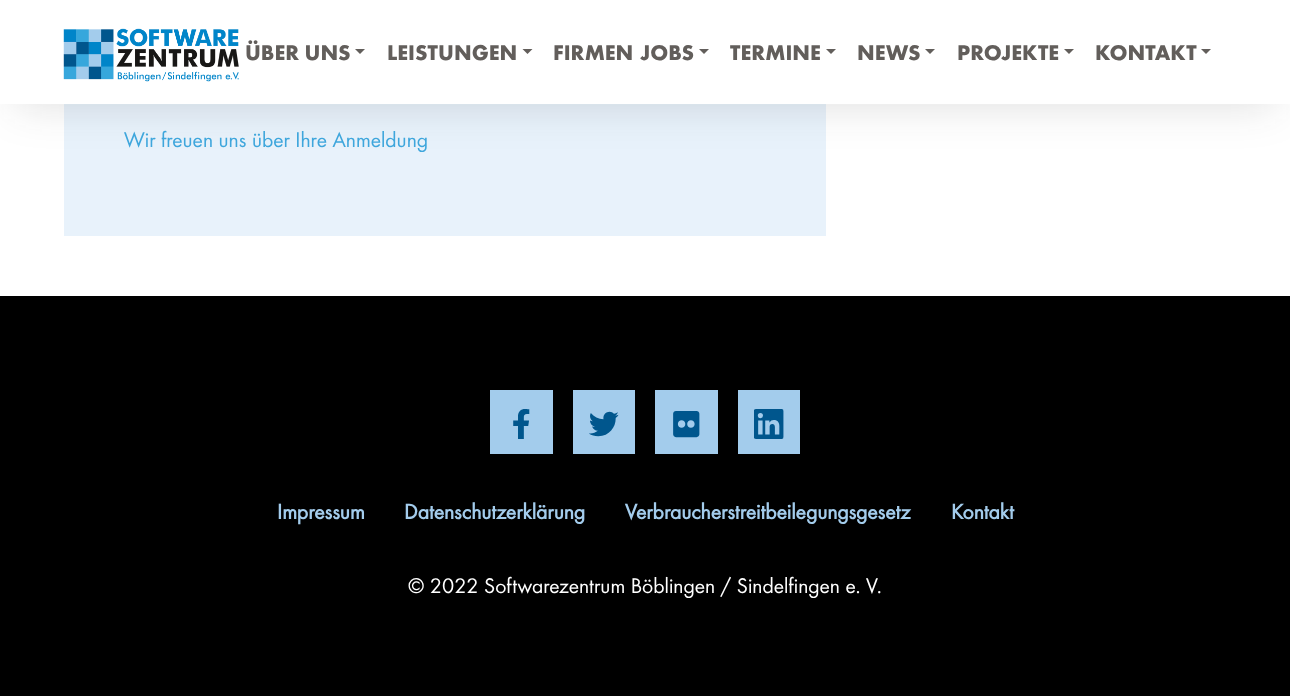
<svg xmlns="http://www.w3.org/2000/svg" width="1290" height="696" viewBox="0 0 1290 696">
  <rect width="100%" height="100%" fill="rgb(255,255,255)"/>
  <rect x="64" y="104" width="762" height="132" fill="rgb(232,242,251)"/>
  <rect x="15" y="31" width="1260" height="74" fill="rgba(35,35,35,0.15)" filter="blur(22px)"/>
  <rect x="0" y="0" width="1290" height="104" fill="rgb(255,255,255)"/>
  <image x="63" y="28" width="176" height="54" href="pic1.png"/>
  <text x="245" y="60" font-family="'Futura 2'" font-size="22" font-weight="bold" fill="rgb(98,94,91)">ÜBER UNS</text>
  <path d="M355 49H365L360 54Z" fill="rgb(98,94,91)"/>
  <text x="387" y="60" font-family="'Futura 2'" font-size="22" font-weight="bold" fill="rgb(98,94,91)">LEISTUNGEN</text>
  <path d="M522.5 49H532.5L527.5 54Z" fill="rgb(98,94,91)"/>
  <g font-family="'Futura 2'" font-size="22" font-weight="bold" fill="rgb(98,94,91)">
    <text x="553" y="60">FIRMEN</text>
    <text x="640" y="60">JOBS</text>
  </g>
  <path d="M699 49H709L704 54Z" fill="rgb(98,94,91)"/>
  <text x="730" y="60" font-family="'Futura 2'" font-size="22" font-weight="bold" fill="rgb(98,94,91)">TERMINE</text>
  <path d="M826 49H836L831 54Z" fill="rgb(98,94,91)"/>
  <text x="857" y="60" font-family="'Futura 2'" font-size="22" font-weight="bold" fill="rgb(98,94,91)">NEWS</text>
  <path d="M925 49H935L930 54Z" fill="rgb(98,94,91)"/>
  <text x="957" y="60" font-family="'Futura 2'" font-size="22" font-weight="bold" fill="rgb(98,94,91)">PROJEKTE</text>
  <path d="M1064 49H1074L1069 54Z" fill="rgb(98,94,91)"/>
  <text x="1095" y="60" font-family="'Futura 2'" font-size="22" font-weight="bold" fill="rgb(98,94,91)">KONTAKT</text>
  <path d="M1201 49H1211L1206 54Z" fill="rgb(98,94,91)"/>
  <text x="124" y="147" font-family="Futura" font-size="22" fill="rgb(62,166,220)">Wir freuen uns über Ihre Anmeldung</text>
  <rect x="0" y="296" width="1290" height="400" fill="rgb(0,0,0)"/>
  <rect x="490" y="390" width="63" height="64" fill="rgb(163,204,236)"/>
  <image x="513" y="409" width="17" height="30" href="pic2.png"/>
  <rect x="573" y="390" width="62" height="64" fill="rgb(163,204,236)"/>
  <image x="589" y="411" width="30" height="26" href="pic3.png"/>
  <rect x="655" y="390" width="63" height="64" fill="rgb(163,204,236)"/>
  <image x="673" y="411" width="27" height="27" href="pic4.png"/>
  <rect x="738" y="390" width="62" height="64" fill="rgb(163,204,236)"/>
  <image x="754" y="409" width="30" height="30" href="pic5.png"/>
  <g font-family="Futura" font-size="22" font-weight="bold" fill="rgb(163,204,236)">
    <text x="277" y="519">Impressum</text>
    <text x="404" y="519">Datenschutzerklärung</text>
    <text x="625" y="519">Verbraucherstreitbeilegungsgesetz</text>
    <text x="951" y="519">Kontakt</text>
  </g>
  <text x="408" y="593" font-family="Futura" font-size="22" fill="rgb(255,255,255)">© 2022 Softwarezentrum Böblingen / Sindelfingen e. V.</text>
</svg>
